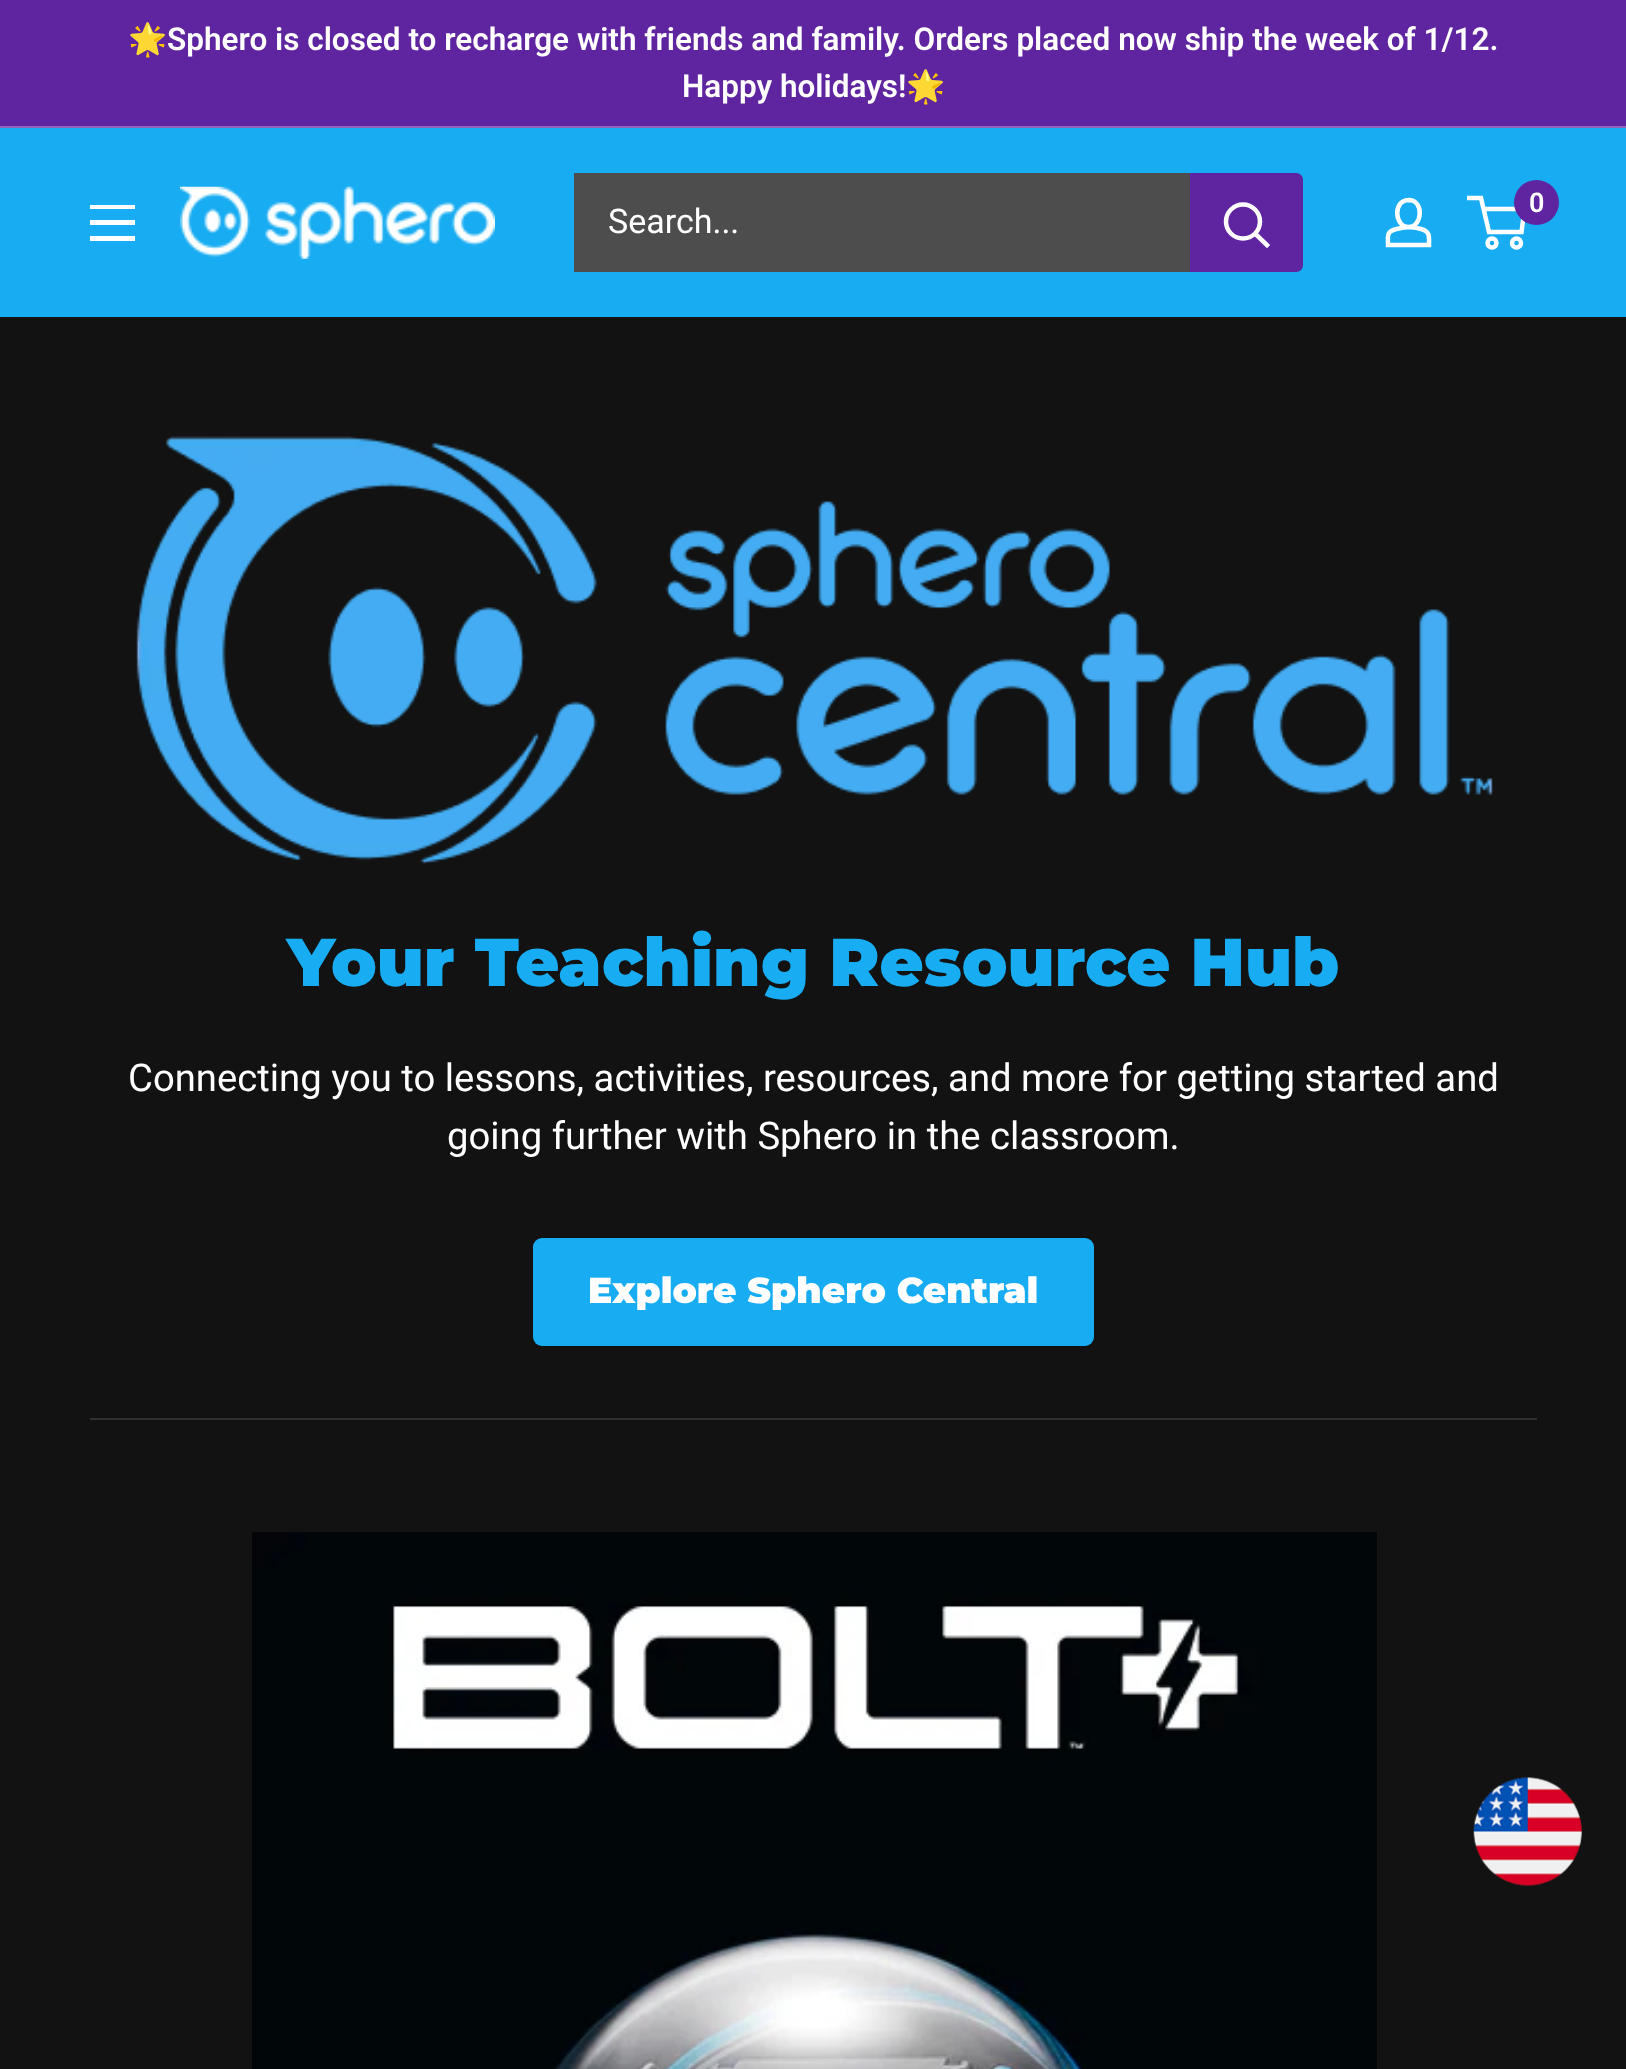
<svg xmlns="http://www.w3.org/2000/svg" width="1626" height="2069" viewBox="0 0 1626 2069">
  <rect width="100%" height="100%" fill="rgb(18,18,18)"/>
  <rect x="0" y="0" width="1626" height="126" fill="rgb(95,36,159)"/>
  <rect x="0" y="126" width="1626" height="2" fill="rgb(143,102,188)"/>
  <text x="128" y="50" font-family="Noto Color Emoji" font-size="31.5" font-weight="bold" fill="rgb(255,255,255)">🌟</text>
  <g font-family="Roboto" font-size="31.5" font-weight="600" fill="rgb(255,255,255)">
    <text x="167" y="50">Sphero is closed to recharge with friends and family. Orders placed now ship the week of 1/12.</text>
    <text x="682" y="97">Happy holidays!</text>
  </g>
  <text x="906" y="97" font-family="Noto Color Emoji" font-size="31.5" font-weight="bold" fill="rgb(255,255,255)">🌟</text>
  <rect x="0" y="128" width="1626" height="189" fill="rgb(24,172,242)"/>
  <image x="180" y="186" width="315" height="73" href="pic1.png"/>
  <path d="M1408.5 227C1412.5 227 1417 228 1421 229C1430.5 231.5 1429 237 1429 245H1388C1388 236 1386 231.5 1396.5 229C1400.5 228 1404.5 227.5 1408.5 227ZM1408.5 227C1394.5 227 1392.5 200.5 1408.5 200C1424.5 200 1422.5 227 1408.5 227Z" fill="none" stroke="rgb(255,255,255)" stroke-width="4.5"/>
  <circle cx="1492" cy="243" r="4.5" fill="none" stroke="rgb(255,255,255)" stroke-width="4.5"/>
  <circle cx="1516.5" cy="243" r="4.5" fill="none" stroke="rgb(255,255,255)" stroke-width="4.5"/>
  <path d="M1483.5 209H1524.5L1521.5 232H1489L1481 198H1467" fill="none" stroke="rgb(255,255,255)" stroke-width="4.5"/>
  <circle cx="1536.5" cy="202.5" r="22.5" fill="rgb(95,36,159)"/>
  <text x="1529" y="212" font-family="Roboto" font-size="27" font-weight="600" fill="rgb(255,255,255)">0</text>
  <path d="M90 236H135V241H90ZM90 205H135V209H90ZM90 220H135V225H90Z" fill="rgb(255,255,255)" fill-rule="evenodd"/>
  <rect x="574" y="173" width="616" height="99" fill="rgb(77,77,77)"/>
  <text x="608" y="233" font-family="Roboto" font-size="34" fill="rgb(255,255,255)">Search...</text>
  <path d="M1190 173H1296C1300 173 1303 176 1303 180V265C1303 269 1300 272 1296 272H1190Z" fill="rgb(95,36,159)"/>
  <path d="M1267 245L1255.5 234" fill="none" stroke="rgb(255,255,255)" stroke-width="4.5" stroke-linecap="square"/>
  <circle cx="1243" cy="221.5" r="17" fill="none" stroke="rgb(255,255,255)" stroke-width="4.5"/>
  <image x="136" y="436" width="1357" height="429" href="pic2.png"/>
  <text x="287" y="986" font-family="Montserrat" font-size="67.5" font-weight="900" fill="rgb(24,172,242)">Your Teaching Resource Hub</text>
  <g font-family="Roboto" font-size="38.25" fill="rgb(255,255,255)">
    <text x="128" y="1091">Connecting you to lessons, activities, resources, and more for getting started and</text>
    <text x="447" y="1149">going further with Sphero in the classroom.</text>
  </g>
  <rect x="533" y="1238" width="561" height="108" rx="9" fill="rgb(24,172,242)"/>
  <text x="588" y="1303" font-family="Montserrat" font-size="36" font-weight="900" fill="rgb(255,255,255)">Explore Sphero Central</text>
  <rect x="90" y="1418" width="1447" height="2" fill="rgb(48,48,48)"/>
  <image x="252" y="1532" width="1125" height="537" href="pic3.png"/>
  <image x="1473" y="1777" width="109" height="109" href="pic4.png"/>
</svg>
